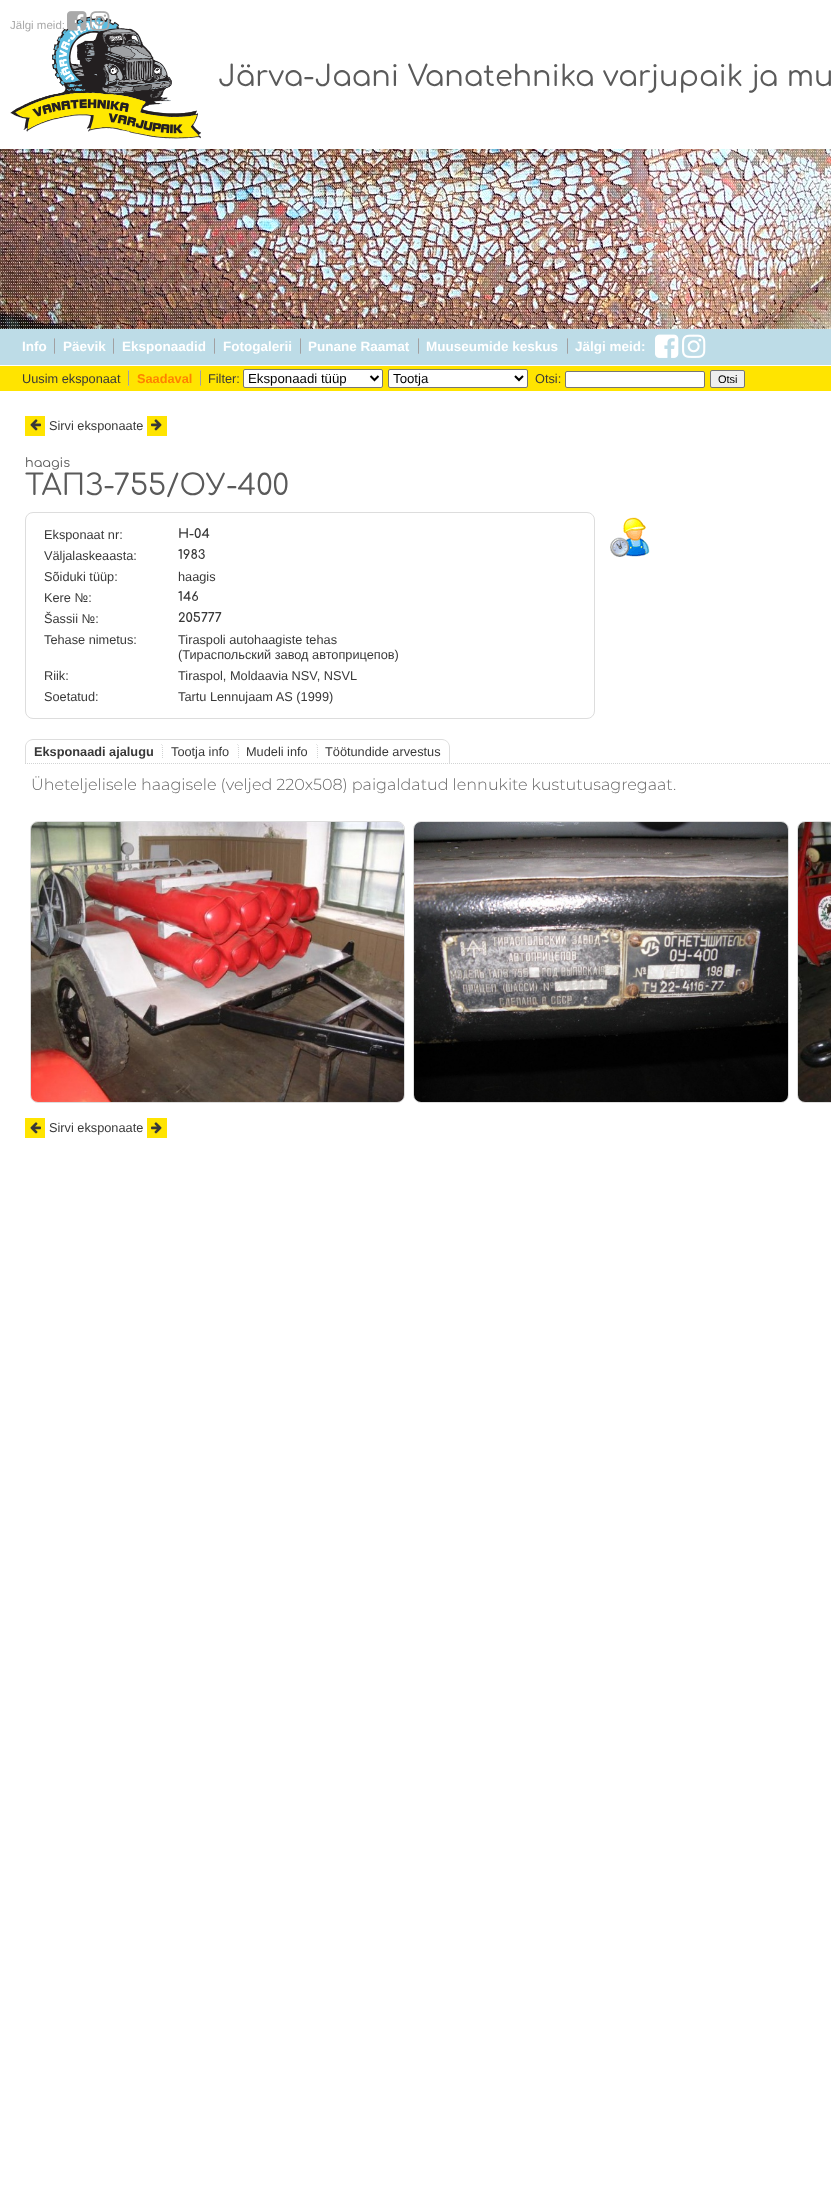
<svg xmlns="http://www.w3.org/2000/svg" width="831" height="2199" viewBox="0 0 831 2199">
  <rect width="100%" height="100%" fill="rgb(255,255,255)"/>
  <image x="10" y="16" width="191" height="123" href="pic3.png"/>
  <text x="10" y="29" font-family="Liberation Sans" font-size="11.5" fill="rgb(169,169,169)">Jälgi meid:</text>
  <image x="67" y="11" width="20" height="20" href="pic1.png"/>
  <image x="90" y="11" width="20" height="20" href="pic2.png"/>
  <text x="218" y="86" font-family="Comfortaa" font-size="28.8" fill="rgb(90,90,90)">Järva-Jaani Vanatehnika varjupaik ja mu</text>
  <image x="0" y="149" width="831" height="180" href="pic4.png"/>
  <rect x="0" y="329" width="831" height="36" fill="rgb(189,220,231)"/>
  <text x="22" y="351" font-family="Liberation Sans" font-size="13.5" font-weight="bold" fill="rgb(255,255,255)">Info</text>
  <image x="54" y="338" width="1" height="16" href="pic5.png"/>
  <text x="63" y="351" font-family="Liberation Sans" font-size="13.5" font-weight="bold" fill="rgb(255,255,255)">Päevik</text>
  <image x="113" y="338" width="1" height="16" href="pic5.png"/>
  <text x="122" y="351" font-family="Liberation Sans" font-size="13.5" font-weight="bold" fill="rgb(255,255,255)">Eksponaadid</text>
  <image x="214" y="338" width="1" height="16" href="pic5.png"/>
  <text x="223" y="351" font-family="Liberation Sans" font-size="13.5" font-weight="bold" fill="rgb(255,255,255)">Fotogalerii</text>
  <image x="300" y="338" width="1" height="16" href="pic5.png"/>
  <text x="308" y="351" font-family="Liberation Sans" font-size="13.5" font-weight="bold" fill="rgb(255,255,255)">Punane Raamat</text>
  <image x="418" y="338" width="1" height="16" href="pic5.png"/>
  <text x="426" y="351" font-family="Liberation Sans" font-size="13.5" font-weight="bold" fill="rgb(255,255,255)">Muuseumide keskus</text>
  <image x="567" y="338" width="1" height="16" href="pic5.png"/>
  <text x="575" y="351" font-family="Liberation Sans" font-size="13.5" font-weight="bold" fill="rgb(255,255,255)">Jälgi meid:</text>
  <image x="655" y="334" width="24" height="24" href="pic6.png"/>
  <image x="682" y="334" width="24" height="24" href="pic7.png"/>
  <rect x="0" y="366" width="831" height="25" fill="rgb(255,228,0)"/>
  <text x="22" y="383" font-family="Liberation Sans" font-size="12.75" fill="rgb(56,56,56)">Uusim eksponaat</text>
  <image x="128" y="370" width="1" height="16" href="pic5.png"/>
  <text x="137" y="383" font-family="Liberation Sans" font-size="12.75" font-weight="bold" fill="rgb(255,129,0)">Saadaval</text>
  <image x="200" y="370" width="1" height="16" href="pic5.png"/>
  <text x="208" y="383" font-family="Liberation Sans" font-size="12.75" fill="rgb(56,56,56)">Filter:</text>
  <rect x="243.5" y="369.5" width="139" height="18" rx="1.5" fill="rgb(255,255,255)" stroke="rgb(118,118,118)"/>
  <path d="M370.5 376L374.5 380L378.5 376" fill="none" stroke="rgb(0,0,0)" stroke-width="2"/>
  <text x="248" y="383" font-family="Liberation Sans" font-size="13.25" fill="rgb(0,0,0)">Eksponaadi tüüp</text>
  <rect x="388.5" y="369.5" width="139" height="18" rx="1.5" fill="rgb(255,255,255)" stroke="rgb(118,118,118)"/>
  <path d="M515 376L519 380L523 376" fill="none" stroke="rgb(0,0,0)" stroke-width="2"/>
  <text x="393" y="383" font-family="Liberation Sans" font-size="13.25" fill="rgb(0,0,0)">Tootja</text>
  <text x="535" y="383" font-family="Liberation Sans" font-size="12.75" fill="rgb(56,56,56)">Otsi:</text>
  <rect x="565.5" y="371.5" width="139" height="16" rx="1.5" fill="rgb(255,255,255)" stroke="rgb(118,118,118)"/>
  <rect x="710.5" y="370.5" width="34" height="17" rx="1.5" fill="rgb(239,239,239)" stroke="rgb(118,118,118)"/>
  <text x="718" y="383" font-family="Liberation Sans" font-size="11" fill="rgb(0,0,0)">Otsi</text>
  <rect x="25" y="416" width="20" height="20" fill="rgb(255,228,0)"/>
  <image x="30" y="419" width="11" height="12" href="pic8.png"/>
  <text x="49" y="430" font-family="Liberation Sans" font-size="12.75" fill="rgb(56,56,56)">Sirvi eksponaate</text>
  <rect x="147" y="416" width="20" height="20" fill="rgb(255,228,0)"/>
  <image x="151" y="419" width="11" height="12" href="pic9.png"/>
  <text x="25" y="467" font-family="Comfortaa" font-size="12.75" fill="rgb(90,90,90)">haagis</text>
  <text x="25" y="495" font-family="Comfortaa" font-size="28.8" fill="rgb(90,90,90)">ТАПЗ-755/ОУ-400</text>
  <rect x="25.5" y="512.5" width="569" height="206" rx="7.5" fill="none" stroke="rgb(221,221,221)"/>
  <text x="44" y="539" font-family="Liberation Sans" font-size="12.75" fill="rgb(56,56,56)">Eksponaat nr:</text>
  <text x="178" y="538" font-family="Comfortaa" font-size="12.75" font-weight="bold" fill="rgb(56,56,56)">H-04</text>
  <text x="44" y="560" font-family="Liberation Sans" font-size="12.75" fill="rgb(56,56,56)">Väljalaskeaasta:</text>
  <text x="178" y="559" font-family="Comfortaa" font-size="12.75" font-weight="bold" fill="rgb(56,56,56)">1983</text>
  <g font-family="Liberation Sans" font-size="12.75" fill="rgb(56,56,56)">
    <text x="44" y="581">Sõiduki tüüp:</text>
    <text x="178" y="581">haagis</text>
    <text x="44" y="602">Kere №:</text>
  </g>
  <text x="178" y="601" font-family="Comfortaa" font-size="12.75" font-weight="bold" fill="rgb(56,56,56)">146</text>
  <text x="44" y="623" font-family="Liberation Sans" font-size="12.75" fill="rgb(56,56,56)">Šassii №:</text>
  <text x="178" y="622" font-family="Comfortaa" font-size="12.75" font-weight="bold" fill="rgb(56,56,56)">205777</text>
  <g font-family="Liberation Sans" font-size="12.75" fill="rgb(56,56,56)">
    <text x="44" y="644">Tehase nimetus:</text>
    <text>
      <tspan x="178" y="644">Tiraspoli autohaagiste tehas</tspan>
      <tspan x="178" y="659">(Тираспольский завод автоприцепов)</tspan>
    </text>
    <text x="44" y="680">Riik:</text>
    <text x="178" y="680">Tiraspol, Moldaavia NSV, NSVL</text>
    <text x="44" y="701">Soetatud:</text>
    <text x="178" y="701">Tartu Lennujaam AS (1999)</text>
  </g>
  <image x="610" y="517" width="40" height="40" href="pic10.png"/>
  <path d="M33 739H442C446 739 450 743 450 747V763H25V747C25 743 29 739 33 739ZM33 740H442C446 740 449 743 449 747V763H26V747C26 743 29 740 33 740Z" fill="rgb(221,221,221)" fill-rule="evenodd"/>
  <text x="34" y="756" font-family="Liberation Sans" font-size="12.75" font-weight="bold" fill="rgb(56,56,56)">Eksponaadi ajalugu</text>
  <image x="161" y="744" width="2" height="14" href="pic11.png"/>
  <text x="171" y="756" font-family="Liberation Sans" font-size="12.75" fill="rgb(56,56,56)">Tootja info</text>
  <image x="237" y="744" width="2" height="14" href="pic11.png"/>
  <text x="246" y="756" font-family="Liberation Sans" font-size="12.75" fill="rgb(56,56,56)">Mudeli info</text>
  <image x="316" y="744" width="2" height="14" href="pic11.png"/>
  <text x="325" y="756" font-family="Liberation Sans" font-size="12.75" fill="rgb(56,56,56)">Töötundide arvestus</text>
  <image x="25" y="763" width="805" height="1" href="pic12.png"/>
  <text x="31" y="790" font-family="Montserrat" font-size="16" font-weight="100" fill="rgb(102,102,102)">Üheteljelisele haagisele (veljed 220x508) paigaldatud lennukite kustutusagregaat.</text>
  <rect x="30.5" y="821.5" width="374" height="281" rx="7.5" fill="none" stroke="rgb(221,221,221)"/>
  <image x="31" y="822" width="373" height="280" href="pic13.png"/>
  <rect x="413.5" y="821.5" width="375" height="281" rx="7.5" fill="none" stroke="rgb(221,221,221)"/>
  <image x="414" y="822" width="374" height="280" href="pic14.png"/>
  <rect x="797.5" y="821.5" width="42" height="281" rx="7.5" fill="none" stroke="rgb(221,221,221)"/>
  <image x="798" y="822" width="33" height="280" href="pic15.png"/>
  <rect x="25" y="1118" width="20" height="20" fill="rgb(255,228,0)"/>
  <image x="30" y="1122" width="11" height="12" href="pic8.png"/>
  <text x="49" y="1132" font-family="Liberation Sans" font-size="12.75" fill="rgb(56,56,56)">Sirvi eksponaate</text>
  <rect x="147" y="1118" width="20" height="20" fill="rgb(255,228,0)"/>
  <image x="151" y="1122" width="11" height="12" href="pic9.png"/>
</svg>
